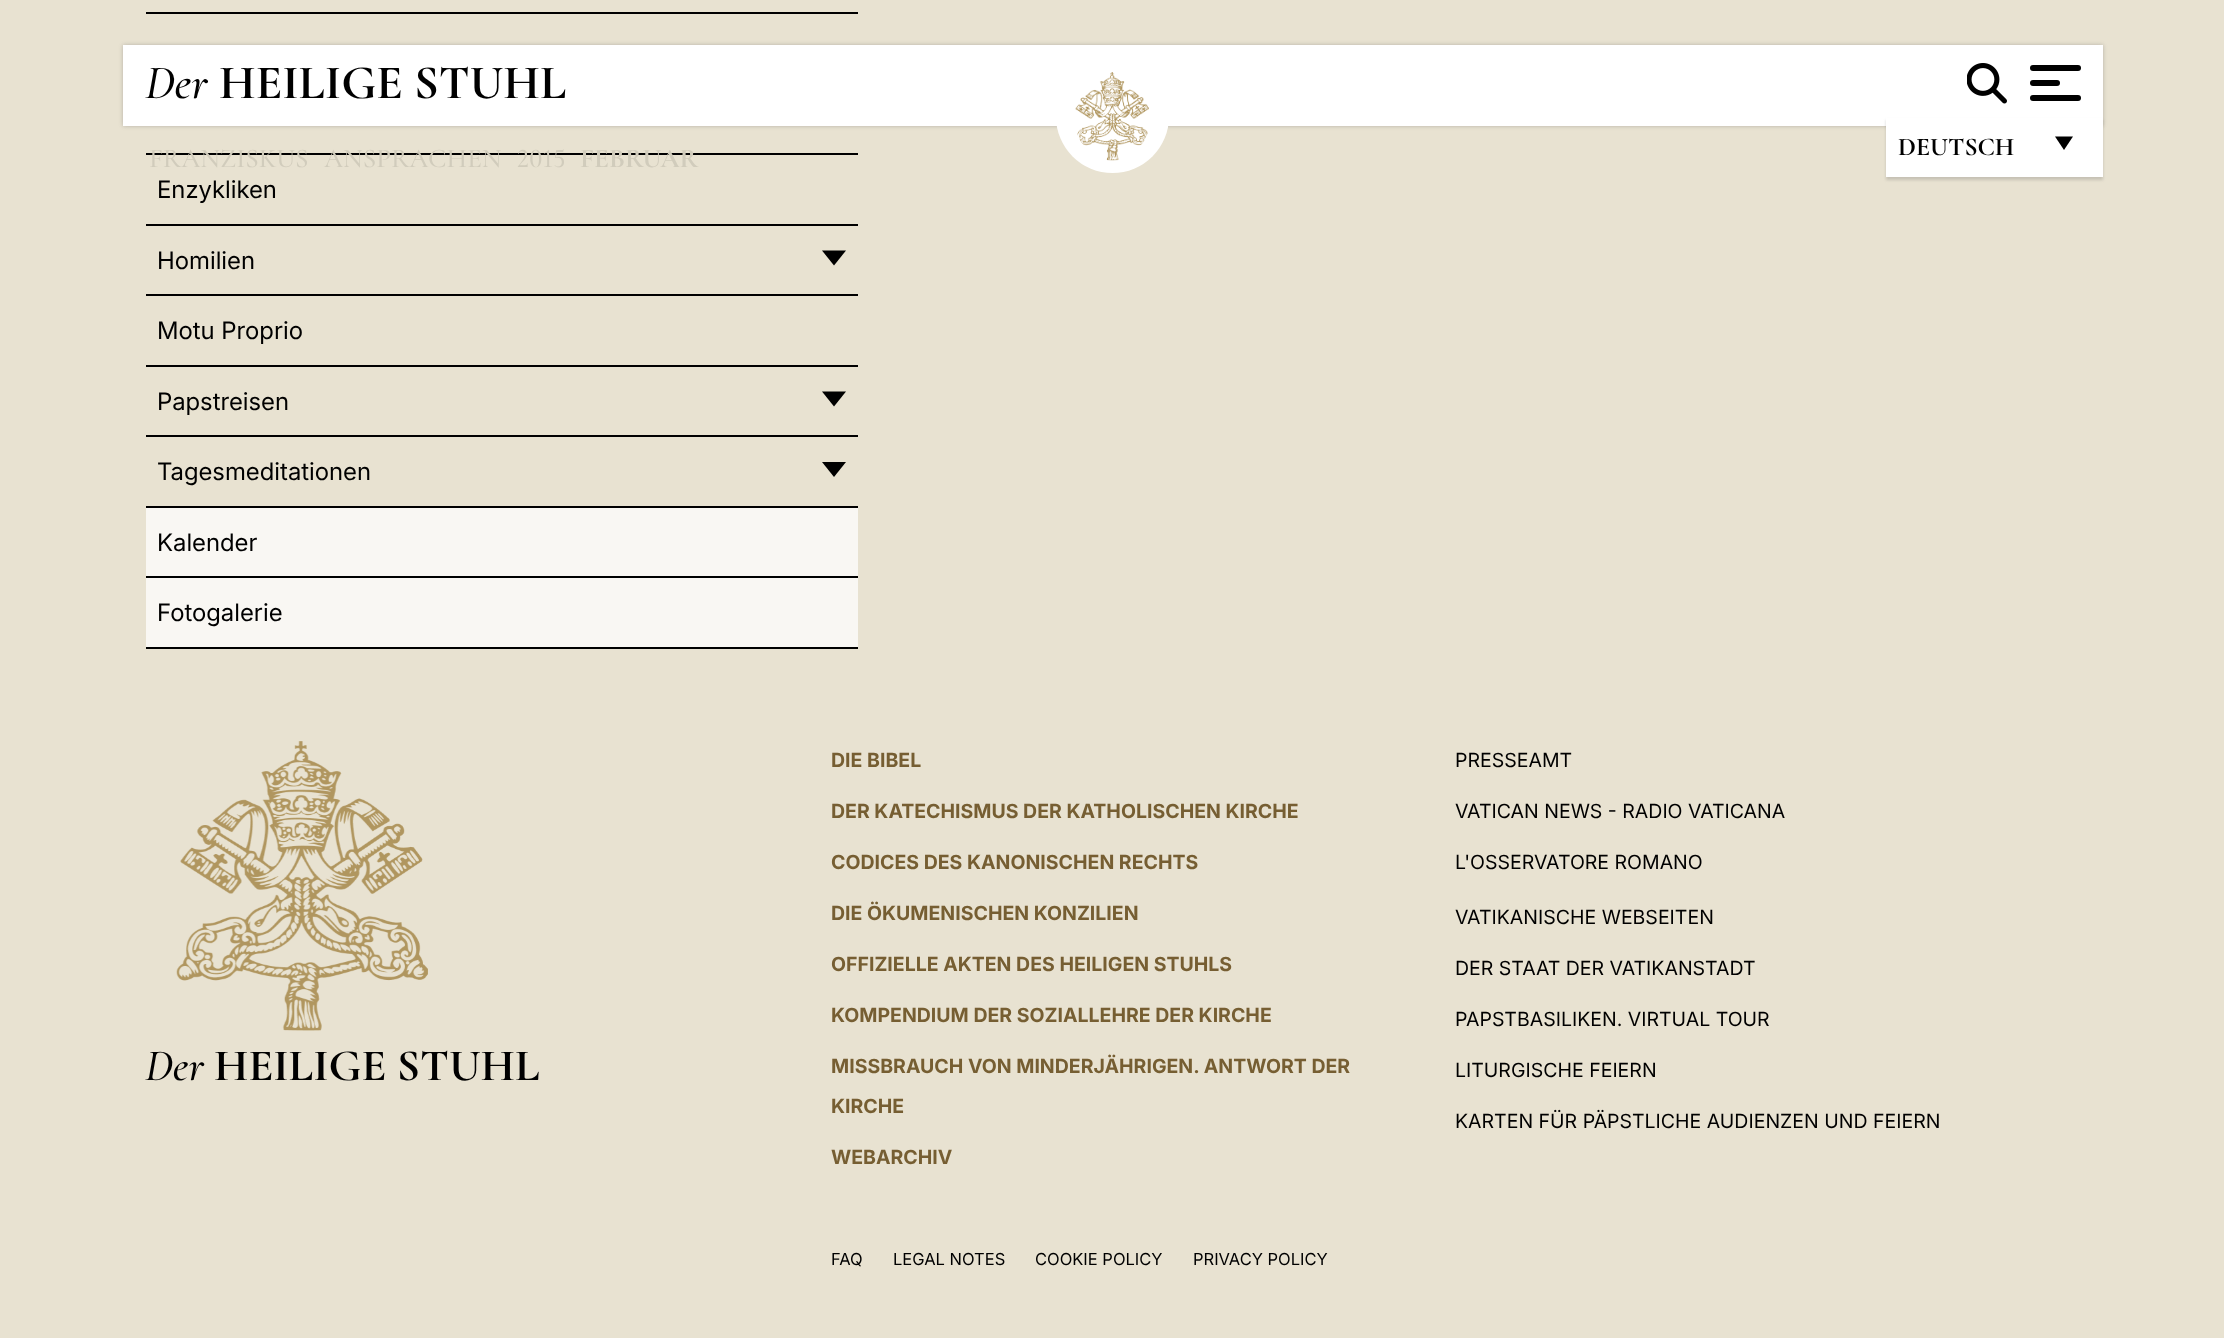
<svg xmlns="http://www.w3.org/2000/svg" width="2224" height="1338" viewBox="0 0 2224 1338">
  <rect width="100%" height="100%" fill="rgb(232,226,209)"/>
  <rect x="123" y="45" width="1980" height="81" fill="rgba(73,73,73,0.31)" filter="blur(2px)"/>
  <rect x="123" y="45" width="1980" height="81" fill="rgb(255,255,255)"/>
  <text x="145" y="98" font-family="Cormorant Garamond" font-size="48" font-weight="500" font-style="italic" fill="rgb(0,0,0)">Der</text>
  <text x="219" y="98" font-family="Cormorant Garamond" font-size="48" font-weight="bold" fill="rgb(0,0,0)">HEILIGE STUHL</text>
  <circle cx="1112.5" cy="116.5" r="56.5" fill="rgb(255,255,255)"/>
  <image x="1075" y="72" width="74" height="89" href="pic1.png"/>
  <image x="1967" y="63" width="40" height="41" href="pic2.png"/>
  <rect x="2030" y="65" width="51" height="6" rx="3" fill="rgb(0,0,0)"/>
  <rect x="2030" y="80" width="30" height="6" rx="3" fill="rgb(0,0,0)"/>
  <rect x="2030" y="95" width="51" height="6" rx="3" fill="rgb(0,0,0)"/>
  <rect x="1886" y="120" width="217" height="60" fill="rgba(85,85,85,0.23)" filter="blur(1.5px)"/>
  <rect x="1886" y="118" width="217" height="59" fill="rgb(255,255,255)"/>
  <text x="1898" y="155" font-family="Cormorant Garamond" font-size="25.5" font-weight="bold" fill="rgb(0,0,0)">DEUTSCH</text>
  <path d="M2055 136.5H2073L2064 150Z" fill="rgb(0,0,0)"/>
  <rect x="146" y="153" width="712" height="2" fill="rgb(0,0,0)"/>
  <g font-family="Cormorant Garamond" font-size="27" font-weight="500" fill="rgb(209,204,188)">
    <text x="149" y="167">FRANZISKUS</text>
    <text x="324" y="167">ANSPRACHEN</text>
  </g>
  <text x="517" y="167" font-family="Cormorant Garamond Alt" font-size="27" font-weight="500" fill="rgb(209,204,188)">2015</text>
  <text x="580" y="167" font-family="Cormorant Garamond" font-size="27" font-weight="bold" fill="rgb(209,204,188)">FEBRUAR</text>
  <rect x="146" y="12" width="712" height="2" fill="rgb(0,0,0)"/>
  <rect x="146" y="224" width="712" height="2" fill="rgb(0,0,0)"/>
  <text x="157" y="198" font-family="'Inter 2'" font-size="24" fill="rgb(0,0,0)">Enzykliken</text>
  <rect x="146" y="294" width="712" height="2" fill="rgb(0,0,0)"/>
  <text x="157" y="269" font-family="'Inter 2'" font-size="24" fill="rgb(0,0,0)">Homilien</text>
  <path d="M822 250.5H846L834 265.5Z" fill="rgb(0,0,0)"/>
  <rect x="146" y="365" width="712" height="2" fill="rgb(0,0,0)"/>
  <text x="157" y="339" font-family="'Inter 2'" font-size="24" fill="rgb(0,0,0)">Motu Proprio</text>
  <rect x="146" y="435" width="712" height="2" fill="rgb(0,0,0)"/>
  <text x="157" y="410" font-family="'Inter 2'" font-size="24" fill="rgb(0,0,0)">Papstreisen</text>
  <path d="M822 391.5H846L834 406.5Z" fill="rgb(0,0,0)"/>
  <rect x="146" y="506" width="712" height="2" fill="rgb(0,0,0)"/>
  <text x="157" y="480" font-family="'Inter 2'" font-size="24" fill="rgb(0,0,0)">Tagesmeditationen</text>
  <path d="M822 462H846L834 477Z" fill="rgb(0,0,0)"/>
  <rect x="146" y="508" width="712" height="139" fill="rgb(249,247,243)"/>
  <rect x="146" y="576" width="712" height="2" fill="rgb(0,0,0)"/>
  <text x="157" y="551" font-family="'Inter 2'" font-size="24" fill="rgb(0,0,0)">Kalender</text>
  <rect x="146" y="647" width="712" height="2" fill="rgb(0,0,0)"/>
  <text x="157" y="621" font-family="'Inter 2'" font-size="24" fill="rgb(0,0,0)">Fotogalerie</text>
  <image x="176" y="741" width="252" height="290" href="pic3.png"/>
  <text x="145" y="1080" font-family="Cormorant Garamond" font-size="45" font-weight="500" font-style="italic" fill="rgb(0,0,0)">Der</text>
  <text x="214" y="1080" font-family="Cormorant Garamond" font-size="45" font-weight="bold" fill="rgb(0,0,0)">HEILIGE STUHL</text>
  <g font-family="Inter" font-size="19.5" font-weight="bold" fill="rgb(118,94,50)">
    <text x="831" y="767">DIE BIBEL</text>
    <text x="831" y="818">DER KATECHISMUS DER KATHOLISCHEN KIRCHE</text>
    <text x="831" y="869">CODICES DES KANONISCHEN RECHTS</text>
    <text x="831" y="920">DIE ÖKUMENISCHEN KONZILIEN</text>
    <text x="831" y="971">OFFIZIELLE AKTEN DES HEILIGEN STUHLS</text>
    <text x="831" y="1022">KOMPENDIUM DER SOZIALLEHRE DER KIRCHE</text>
    <text x="831" y="1073">MISSBRAUCH VON MINDERJÄHRIGEN. ANTWORT DER</text>
    <text x="831" y="1113">KIRCHE</text>
    <text x="831" y="1164">WEBARCHIV</text>
  </g>
  <g font-family="Inter" font-size="19.5" fill="rgb(0,0,0)">
    <text x="1455" y="767">PRESSEAMT</text>
    <text x="1455" y="818">VATICAN NEWS - RADIO VATICANA</text>
    <text x="1455" y="869">L'OSSERVATORE ROMANO</text>
    <text x="1455" y="924">VATIKANISCHE WEBSEITEN</text>
    <text x="1455" y="975">DER STAAT DER VATIKANSTADT</text>
    <text x="1455" y="1026">PAPSTBASILIKEN. VIRTUAL TOUR</text>
    <text x="1455" y="1077">LITURGISCHE FEIERN</text>
    <text x="1455" y="1128">KARTEN FÜR PÄPSTLICHE AUDIENZEN UND FEIERN</text>
  </g>
  <g font-family="Inter" font-size="16.5" fill="rgb(0,0,0)">
    <text x="831" y="1265">FAQ</text>
    <text x="893" y="1265">LEGAL NOTES</text>
    <text x="1035" y="1265">COOKIE POLICY</text>
    <text x="1193" y="1265">PRIVACY POLICY</text>
  </g>
</svg>
